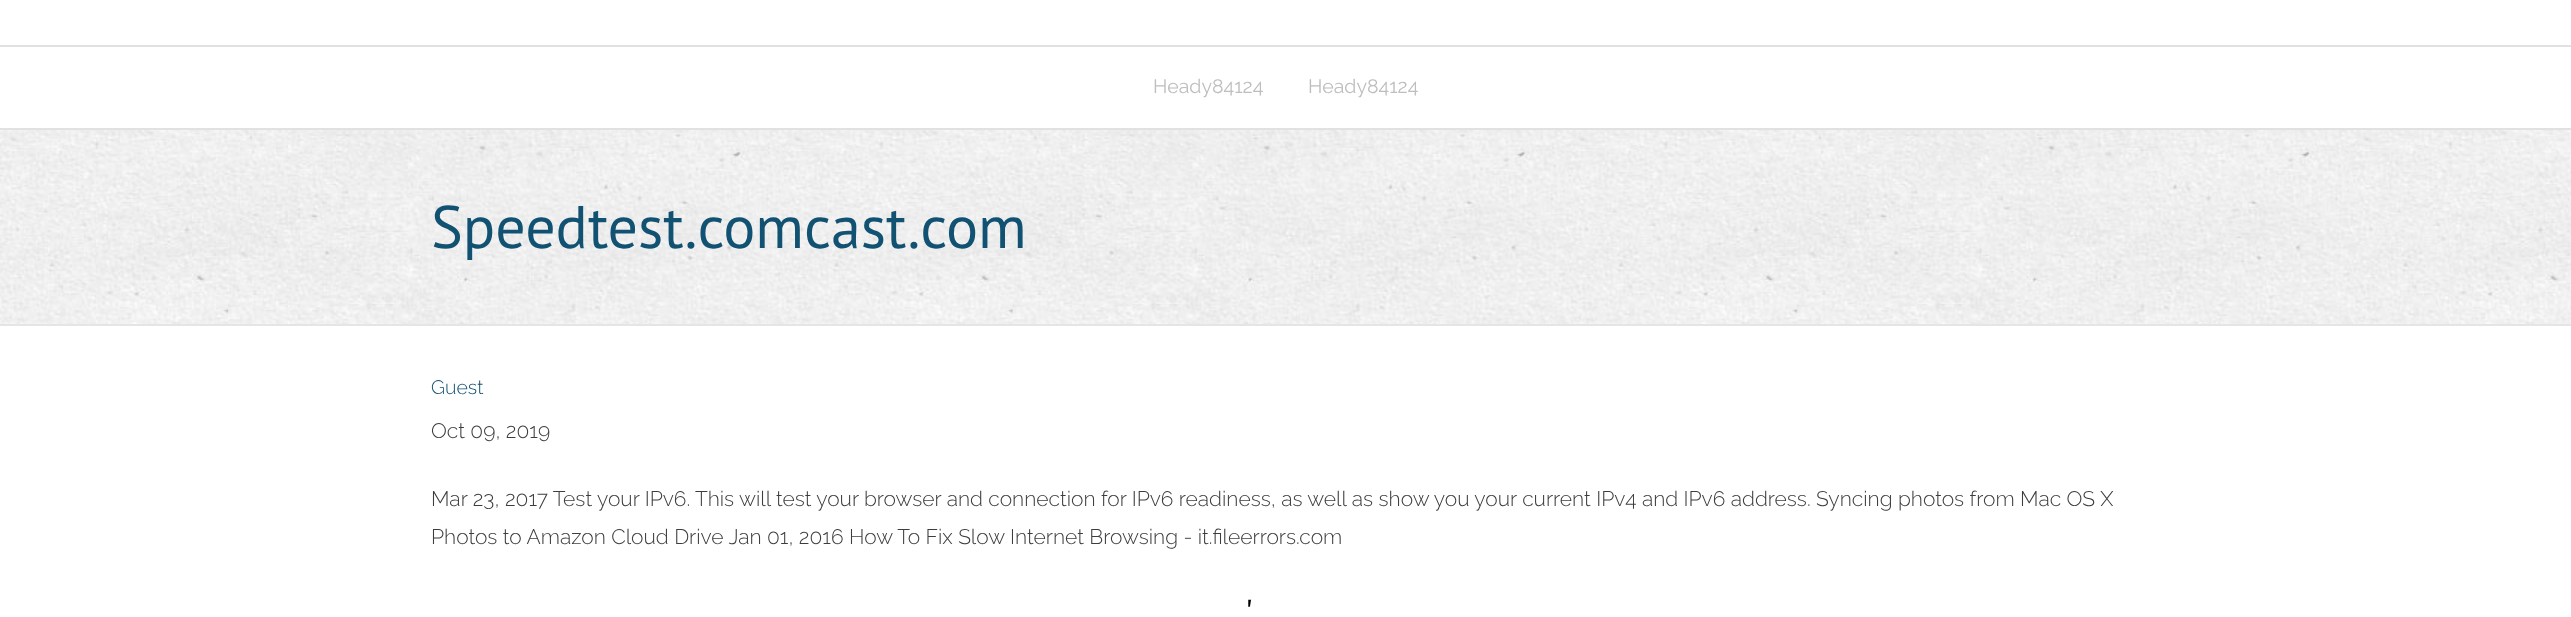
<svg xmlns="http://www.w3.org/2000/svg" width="2571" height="617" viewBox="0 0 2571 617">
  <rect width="100%" height="100%" fill="rgb(255,255,255)"/>
  <rect x="0" y="45" width="2571" height="2" fill="rgb(225,225,225)"/>
  <rect x="0" y="128" width="2571" height="2" fill="rgb(225,225,225)"/>
  <g font-family="Raleway" font-size="19.5" fill="rgb(190,190,190)">
    <text x="1153" y="93">Heady84124</text>
    <text x="1308" y="93">Heady84124</text>
  </g>
  <image x="0" y="130" width="2571" height="194" href="pic1.png"/>
  <rect x="0" y="324" width="2571" height="2" fill="rgb(229,229,229)"/>
  <text x="431" y="248" font-family="PT Sans" font-size="60" fill="rgb(17,81,114)">Speedtest.comcast.com</text>
  <text x="431" y="394" font-family="Raleway" font-size="19.5" font-weight="300" fill="rgb(17,81,114)">Guest</text>
  <g font-family="Raleway" font-size="21" font-weight="300" fill="rgb(61,61,61)">
    <text x="431" y="438">Oct 09, 2019</text>
    <text>
      <tspan x="431" y="506">Mar 23, 2017 Test your IPv6. This will test your browser and connection for IPv6 readiness, as well as show you your current IPv4 and IPv6 address. Syncing photos from Mac OS X</tspan>
      <tspan x="431" y="544">Photos to Amazon Cloud Drive Jan 01, 2016 How To Fix Slow Internet Browsing - it.fileerrors.com</tspan>
    </text>
  </g>
  <text x="1245" y="625" font-family="PT Sans" font-size="36" fill="rgb(0,0,0)">'</text>
</svg>
